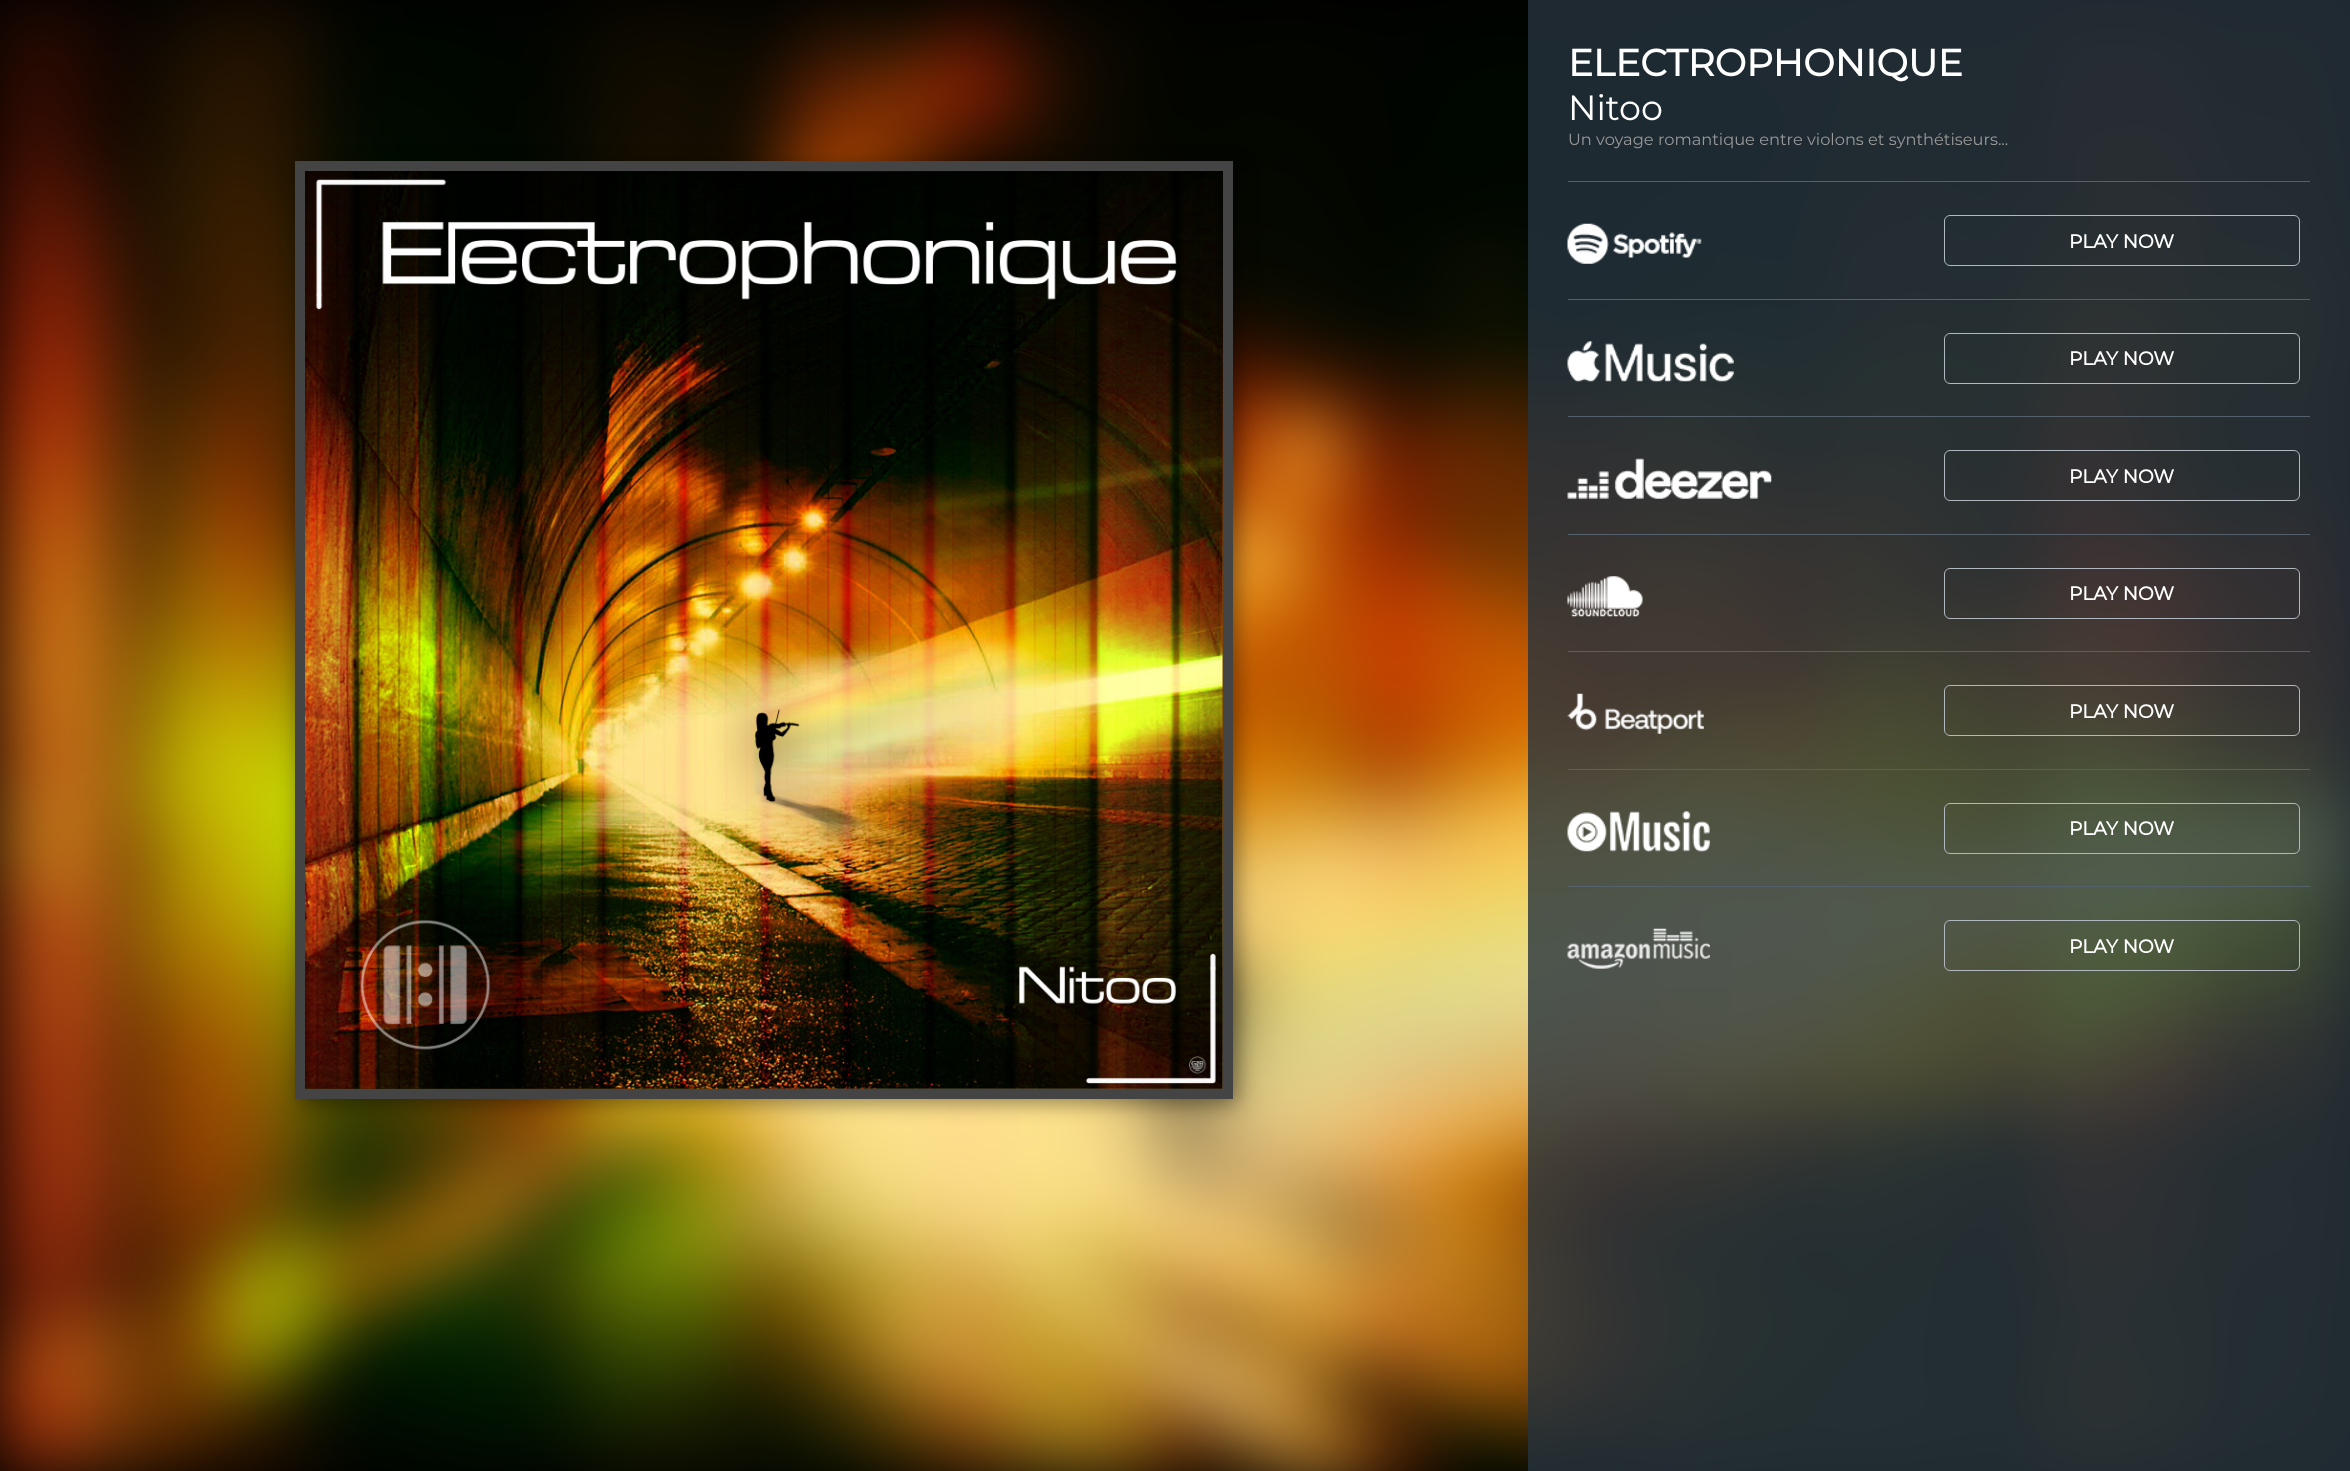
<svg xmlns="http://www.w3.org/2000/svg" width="2350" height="1471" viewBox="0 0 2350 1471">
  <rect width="100%" height="100%" fill="rgb(0,0,0)"/>
  <image x="0" y="0" width="2350" height="1471" href="pic1.png"/>
  <rect x="300" y="166" width="938" height="938" fill="rgba(0,0,0,0.4)" filter="blur(10px)"/>
  <rect x="300" y="166" width="928" height="928" fill="none" stroke="rgb(68,68,68)" stroke-width="10"/>
  <image x="305" y="171" width="918" height="918" href="pic2.png"/>
  <rect x="1528" y="0" width="822" height="1471" fill="rgba(38,51,63,0.8)"/>
  <text x="1568" y="76" font-family="Montserrat" font-size="37.5" font-weight="bold" fill="rgb(255,255,255)">ELECTROPHONIQUE</text>
  <text x="1568" y="120" font-family="Montserrat" font-size="35" font-weight="100" fill="rgb(255,255,255)">Nitoo</text>
  <text x="1568" y="145" font-family="Montserrat" font-size="16.25" font-weight="100" fill="rgb(153,153,153)">Un voyage romantique entre violons et synthétiseurs...</text>
  <rect x="1568" y="181" width="742" height="1" fill="rgb(84,96,107)"/>
  <image x="1567" y="223" width="135" height="41" href="pic3.png"/>
  <rect x="1944.5" y="215.5" width="355" height="50" rx="5.5" fill="none" stroke="rgb(177,184,191)"/>
  <text x="2069" y="248" font-family="Montserrat" font-size="18.75" font-weight="bold" fill="rgb(255,255,255)">PLAY NOW</text>
  <rect x="1568" y="299" width="742" height="1" fill="rgb(84,96,107)"/>
  <image x="1567" y="341" width="167" height="41" href="pic4.png"/>
  <rect x="1944.5" y="333.5" width="355" height="50" rx="5.5" fill="none" stroke="rgb(177,184,191)"/>
  <text x="2069" y="365" font-family="Montserrat" font-size="18.75" font-weight="bold" fill="rgb(255,255,255)">PLAY NOW</text>
  <rect x="1568" y="416" width="742" height="1" fill="rgb(84,96,107)"/>
  <image x="1567" y="458" width="205" height="41" href="pic5.png"/>
  <rect x="1944.5" y="450.5" width="355" height="50" rx="5.5" fill="none" stroke="rgb(177,184,191)"/>
  <text x="2069" y="483" font-family="Montserrat" font-size="18.75" font-weight="bold" fill="rgb(255,255,255)">PLAY NOW</text>
  <rect x="1568" y="534" width="742" height="1" fill="rgb(84,96,107)"/>
  <image x="1567" y="576" width="76" height="41" href="pic6.png"/>
  <rect x="1944.5" y="568.5" width="355" height="50" rx="5.5" fill="none" stroke="rgb(177,184,191)"/>
  <text x="2069" y="600" font-family="Montserrat" font-size="18.75" font-weight="bold" fill="rgb(255,255,255)">PLAY NOW</text>
  <rect x="1568" y="651" width="742" height="1" fill="rgb(84,96,107)"/>
  <image x="1567" y="693" width="137" height="41" href="pic7.png"/>
  <rect x="1944.5" y="685.5" width="355" height="50" rx="5.5" fill="none" stroke="rgb(177,184,191)"/>
  <text x="2069" y="718" font-family="Montserrat" font-size="18.75" font-weight="bold" fill="rgb(255,255,255)">PLAY NOW</text>
  <rect x="1568" y="769" width="742" height="1" fill="rgb(84,96,107)"/>
  <image x="1567" y="811" width="143" height="41" href="pic8.png"/>
  <rect x="1944.5" y="803.5" width="355" height="50" rx="5.5" fill="none" stroke="rgb(177,184,191)"/>
  <text x="2069" y="835" font-family="Montserrat" font-size="18.75" font-weight="bold" fill="rgb(255,255,255)">PLAY NOW</text>
  <rect x="1568" y="886" width="742" height="1" fill="rgb(84,96,107)"/>
  <image x="1567" y="928" width="143" height="41" href="pic9.png"/>
  <rect x="1944.5" y="920.5" width="355" height="50" rx="5.5" fill="none" stroke="rgb(177,184,191)"/>
  <text x="2069" y="953" font-family="Montserrat" font-size="18.75" font-weight="bold" fill="rgb(255,255,255)">PLAY NOW</text>
</svg>
